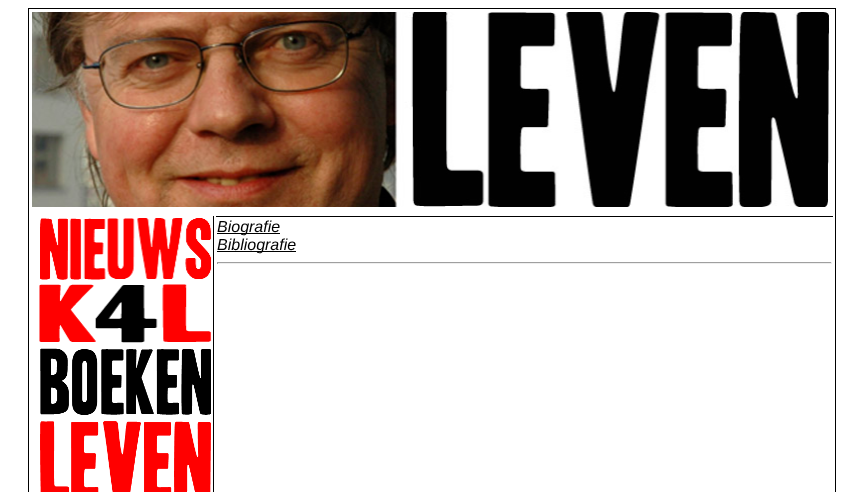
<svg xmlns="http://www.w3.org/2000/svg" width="864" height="492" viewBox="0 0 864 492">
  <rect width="100%" height="100%" fill="rgb(255,255,255)"/>
  <rect x="28.5" y="8.5" width="807" height="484" fill="none" stroke="rgb(0,0,0)"/>
  <image x="32" y="12" width="799" height="195" href="pic1.png"/>
  <rect x="213" y="216" width="1" height="276" fill="rgb(0,0,0)"/>
  <image x="40" y="218" width="172" height="62" href="pic2.png"/>
  <image x="39" y="284" width="173" height="59" href="pic3.png"/>
  <image x="40" y="348" width="171" height="67" href="pic4.png"/>
  <image x="40" y="421" width="171" height="71" href="pic5.png"/>
  <rect x="216" y="216" width="617" height="1" fill="rgb(0,0,0)"/>
  <rect x="217" y="233" width="63" height="1" fill="rgb(0,0,0)"/>
  <text x="217" y="232" font-family="Liberation Sans" font-size="16" font-style="italic" fill="rgb(0,0,0)">Biografie</text>
  <rect x="217" y="251" width="79" height="1" fill="rgb(0,0,0)"/>
  <text x="217" y="250" font-family="Liberation Sans" font-size="16" font-style="italic" fill="rgb(0,0,0)">Bibliografie</text>
  <rect x="217" y="262" width="615" height="1" fill="rgb(159,159,159)"/>
  <rect x="831" y="262" width="1" height="2" fill="rgb(238,238,238)"/>
  <rect x="217" y="263" width="615" height="1" fill="rgb(238,238,238)"/>
  <rect x="217" y="262" width="1" height="2" fill="rgb(159,159,159)"/>
</svg>
